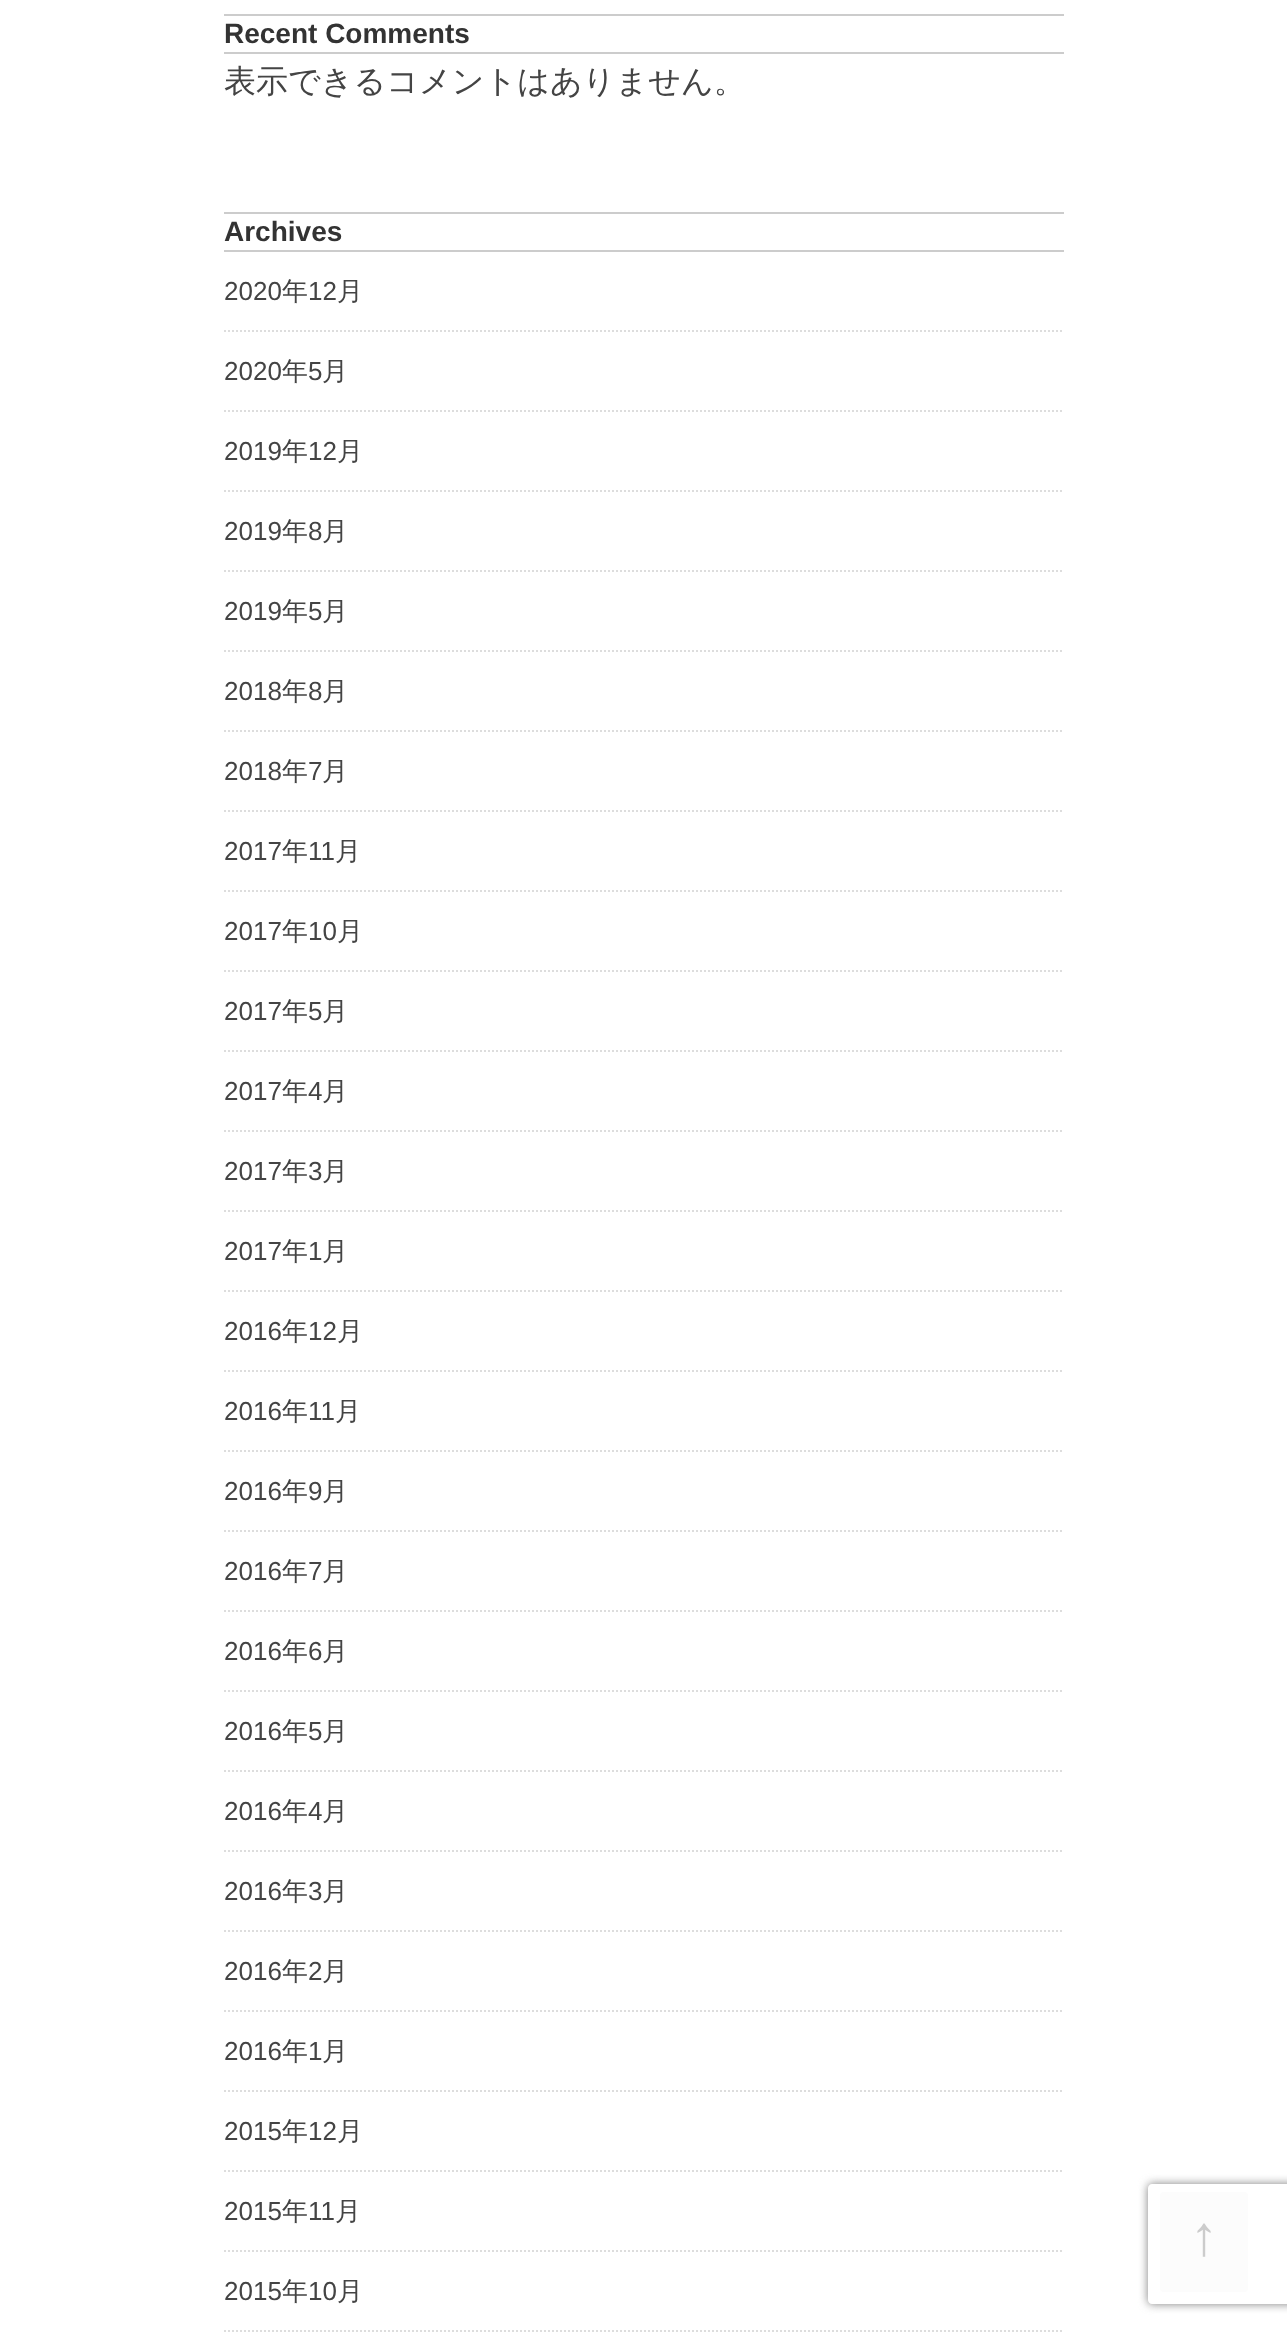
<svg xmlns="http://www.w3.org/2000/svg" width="1287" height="2332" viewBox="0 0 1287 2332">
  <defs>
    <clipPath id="clip1"><path d="M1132 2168H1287V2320H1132ZM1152 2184H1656C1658 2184 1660 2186 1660 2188V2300C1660 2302 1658 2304 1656 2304H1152C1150 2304 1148 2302 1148 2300V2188C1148 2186 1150 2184 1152 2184Z" clip-rule="evenodd"/></clipPath>
  </defs>
  <rect width="100%" height="100%" fill="rgb(255,255,255)"/>
  <rect x="224" y="14" width="840" height="2" fill="rgb(204,204,204)"/>
  <rect x="224" y="52" width="840" height="2" fill="rgb(204,204,204)"/>
  <text x="224" y="43" font-family="Liberation Sans" font-size="28" font-weight="bold" fill="rgb(51,51,51)">Recent Comments</text>
  <text x="224" y="92" font-family="WenQuanYi Zen Hei" font-size="32" font-weight="500" fill="rgb(68,68,68)">表示できるコメントはありません。</text>
  <rect x="224" y="212" width="840" height="2" fill="rgb(204,204,204)"/>
  <rect x="224" y="250" width="840" height="2" fill="rgb(204,204,204)"/>
  <text x="224" y="241" font-family="Liberation Sans" font-size="28" font-weight="bold" fill="rgb(51,51,51)">Archives</text>
  <path d="M224 331H1064" fill="none" stroke="rgb(221,221,221)" stroke-width="2" stroke-dasharray="2 2"/>
  <text x="224" y="300" font-family="Liberation Sans" font-size="26" fill="rgb(68,68,68)">2020</text>
  <text x="282" y="300" font-family="WenQuanYi Zen Hei" font-size="26" font-weight="500" fill="rgb(68,68,68)">年</text>
  <text x="308" y="300" font-family="Liberation Sans" font-size="26" fill="rgb(68,68,68)">12</text>
  <text x="337" y="300" font-family="WenQuanYi Zen Hei" font-size="26" font-weight="500" fill="rgb(68,68,68)">月</text>
  <path d="M224 411H1064" fill="none" stroke="rgb(221,221,221)" stroke-width="2" stroke-dasharray="2 2"/>
  <text x="224" y="380" font-family="Liberation Sans" font-size="26" fill="rgb(68,68,68)">2020</text>
  <text x="282" y="380" font-family="WenQuanYi Zen Hei" font-size="26" font-weight="500" fill="rgb(68,68,68)">年</text>
  <text x="308" y="380" font-family="Liberation Sans" font-size="26" fill="rgb(68,68,68)">5</text>
  <text x="322" y="380" font-family="WenQuanYi Zen Hei" font-size="26" font-weight="500" fill="rgb(68,68,68)">月</text>
  <path d="M224 491H1064" fill="none" stroke="rgb(221,221,221)" stroke-width="2" stroke-dasharray="2 2"/>
  <text x="224" y="460" font-family="Liberation Sans" font-size="26" fill="rgb(68,68,68)">2019</text>
  <text x="282" y="460" font-family="WenQuanYi Zen Hei" font-size="26" font-weight="500" fill="rgb(68,68,68)">年</text>
  <text x="308" y="460" font-family="Liberation Sans" font-size="26" fill="rgb(68,68,68)">12</text>
  <text x="337" y="460" font-family="WenQuanYi Zen Hei" font-size="26" font-weight="500" fill="rgb(68,68,68)">月</text>
  <path d="M224 571H1064" fill="none" stroke="rgb(221,221,221)" stroke-width="2" stroke-dasharray="2 2"/>
  <text x="224" y="540" font-family="Liberation Sans" font-size="26" fill="rgb(68,68,68)">2019</text>
  <text x="282" y="540" font-family="WenQuanYi Zen Hei" font-size="26" font-weight="500" fill="rgb(68,68,68)">年</text>
  <text x="308" y="540" font-family="Liberation Sans" font-size="26" fill="rgb(68,68,68)">8</text>
  <text x="322" y="540" font-family="WenQuanYi Zen Hei" font-size="26" font-weight="500" fill="rgb(68,68,68)">月</text>
  <path d="M224 651H1064" fill="none" stroke="rgb(221,221,221)" stroke-width="2" stroke-dasharray="2 2"/>
  <text x="224" y="620" font-family="Liberation Sans" font-size="26" fill="rgb(68,68,68)">2019</text>
  <text x="282" y="620" font-family="WenQuanYi Zen Hei" font-size="26" font-weight="500" fill="rgb(68,68,68)">年</text>
  <text x="308" y="620" font-family="Liberation Sans" font-size="26" fill="rgb(68,68,68)">5</text>
  <text x="322" y="620" font-family="WenQuanYi Zen Hei" font-size="26" font-weight="500" fill="rgb(68,68,68)">月</text>
  <path d="M224 731H1064" fill="none" stroke="rgb(221,221,221)" stroke-width="2" stroke-dasharray="2 2"/>
  <text x="224" y="700" font-family="Liberation Sans" font-size="26" fill="rgb(68,68,68)">2018</text>
  <text x="282" y="700" font-family="WenQuanYi Zen Hei" font-size="26" font-weight="500" fill="rgb(68,68,68)">年</text>
  <text x="308" y="700" font-family="Liberation Sans" font-size="26" fill="rgb(68,68,68)">8</text>
  <text x="322" y="700" font-family="WenQuanYi Zen Hei" font-size="26" font-weight="500" fill="rgb(68,68,68)">月</text>
  <path d="M224 811H1064" fill="none" stroke="rgb(221,221,221)" stroke-width="2" stroke-dasharray="2 2"/>
  <text x="224" y="780" font-family="Liberation Sans" font-size="26" fill="rgb(68,68,68)">2018</text>
  <text x="282" y="780" font-family="WenQuanYi Zen Hei" font-size="26" font-weight="500" fill="rgb(68,68,68)">年</text>
  <text x="308" y="780" font-family="Liberation Sans" font-size="26" fill="rgb(68,68,68)">7</text>
  <text x="322" y="780" font-family="WenQuanYi Zen Hei" font-size="26" font-weight="500" fill="rgb(68,68,68)">月</text>
  <path d="M224 891H1064" fill="none" stroke="rgb(221,221,221)" stroke-width="2" stroke-dasharray="2 2"/>
  <text x="224" y="860" font-family="Liberation Sans" font-size="26" fill="rgb(68,68,68)">2017</text>
  <text x="282" y="860" font-family="WenQuanYi Zen Hei" font-size="26" font-weight="500" fill="rgb(68,68,68)">年</text>
  <text x="308" y="860" font-family="Liberation Sans" font-size="26" fill="rgb(68,68,68)">11</text>
  <text x="335" y="860" font-family="WenQuanYi Zen Hei" font-size="26" font-weight="500" fill="rgb(68,68,68)">月</text>
  <path d="M224 971H1064" fill="none" stroke="rgb(221,221,221)" stroke-width="2" stroke-dasharray="2 2"/>
  <text x="224" y="940" font-family="Liberation Sans" font-size="26" fill="rgb(68,68,68)">2017</text>
  <text x="282" y="940" font-family="WenQuanYi Zen Hei" font-size="26" font-weight="500" fill="rgb(68,68,68)">年</text>
  <text x="308" y="940" font-family="Liberation Sans" font-size="26" fill="rgb(68,68,68)">10</text>
  <text x="337" y="940" font-family="WenQuanYi Zen Hei" font-size="26" font-weight="500" fill="rgb(68,68,68)">月</text>
  <path d="M224 1051H1064" fill="none" stroke="rgb(221,221,221)" stroke-width="2" stroke-dasharray="2 2"/>
  <text x="224" y="1020" font-family="Liberation Sans" font-size="26" fill="rgb(68,68,68)">2017</text>
  <text x="282" y="1020" font-family="WenQuanYi Zen Hei" font-size="26" font-weight="500" fill="rgb(68,68,68)">年</text>
  <text x="308" y="1020" font-family="Liberation Sans" font-size="26" fill="rgb(68,68,68)">5</text>
  <text x="322" y="1020" font-family="WenQuanYi Zen Hei" font-size="26" font-weight="500" fill="rgb(68,68,68)">月</text>
  <path d="M224 1131H1064" fill="none" stroke="rgb(221,221,221)" stroke-width="2" stroke-dasharray="2 2"/>
  <text x="224" y="1100" font-family="Liberation Sans" font-size="26" fill="rgb(68,68,68)">2017</text>
  <text x="282" y="1100" font-family="WenQuanYi Zen Hei" font-size="26" font-weight="500" fill="rgb(68,68,68)">年</text>
  <text x="308" y="1100" font-family="Liberation Sans" font-size="26" fill="rgb(68,68,68)">4</text>
  <text x="322" y="1100" font-family="WenQuanYi Zen Hei" font-size="26" font-weight="500" fill="rgb(68,68,68)">月</text>
  <path d="M224 1211H1064" fill="none" stroke="rgb(221,221,221)" stroke-width="2" stroke-dasharray="2 2"/>
  <text x="224" y="1180" font-family="Liberation Sans" font-size="26" fill="rgb(68,68,68)">2017</text>
  <text x="282" y="1180" font-family="WenQuanYi Zen Hei" font-size="26" font-weight="500" fill="rgb(68,68,68)">年</text>
  <text x="308" y="1180" font-family="Liberation Sans" font-size="26" fill="rgb(68,68,68)">3</text>
  <text x="322" y="1180" font-family="WenQuanYi Zen Hei" font-size="26" font-weight="500" fill="rgb(68,68,68)">月</text>
  <path d="M224 1291H1064" fill="none" stroke="rgb(221,221,221)" stroke-width="2" stroke-dasharray="2 2"/>
  <text x="224" y="1260" font-family="Liberation Sans" font-size="26" fill="rgb(68,68,68)">2017</text>
  <text x="282" y="1260" font-family="WenQuanYi Zen Hei" font-size="26" font-weight="500" fill="rgb(68,68,68)">年</text>
  <text x="308" y="1260" font-family="Liberation Sans" font-size="26" fill="rgb(68,68,68)">1</text>
  <text x="322" y="1260" font-family="WenQuanYi Zen Hei" font-size="26" font-weight="500" fill="rgb(68,68,68)">月</text>
  <path d="M224 1371H1064" fill="none" stroke="rgb(221,221,221)" stroke-width="2" stroke-dasharray="2 2"/>
  <text x="224" y="1340" font-family="Liberation Sans" font-size="26" fill="rgb(68,68,68)">2016</text>
  <text x="282" y="1340" font-family="WenQuanYi Zen Hei" font-size="26" font-weight="500" fill="rgb(68,68,68)">年</text>
  <text x="308" y="1340" font-family="Liberation Sans" font-size="26" fill="rgb(68,68,68)">12</text>
  <text x="337" y="1340" font-family="WenQuanYi Zen Hei" font-size="26" font-weight="500" fill="rgb(68,68,68)">月</text>
  <path d="M224 1451H1064" fill="none" stroke="rgb(221,221,221)" stroke-width="2" stroke-dasharray="2 2"/>
  <text x="224" y="1420" font-family="Liberation Sans" font-size="26" fill="rgb(68,68,68)">2016</text>
  <text x="282" y="1420" font-family="WenQuanYi Zen Hei" font-size="26" font-weight="500" fill="rgb(68,68,68)">年</text>
  <text x="308" y="1420" font-family="Liberation Sans" font-size="26" fill="rgb(68,68,68)">11</text>
  <text x="335" y="1420" font-family="WenQuanYi Zen Hei" font-size="26" font-weight="500" fill="rgb(68,68,68)">月</text>
  <path d="M224 1531H1064" fill="none" stroke="rgb(221,221,221)" stroke-width="2" stroke-dasharray="2 2"/>
  <text x="224" y="1500" font-family="Liberation Sans" font-size="26" fill="rgb(68,68,68)">2016</text>
  <text x="282" y="1500" font-family="WenQuanYi Zen Hei" font-size="26" font-weight="500" fill="rgb(68,68,68)">年</text>
  <text x="308" y="1500" font-family="Liberation Sans" font-size="26" fill="rgb(68,68,68)">9</text>
  <text x="322" y="1500" font-family="WenQuanYi Zen Hei" font-size="26" font-weight="500" fill="rgb(68,68,68)">月</text>
  <path d="M224 1611H1064" fill="none" stroke="rgb(221,221,221)" stroke-width="2" stroke-dasharray="2 2"/>
  <text x="224" y="1580" font-family="Liberation Sans" font-size="26" fill="rgb(68,68,68)">2016</text>
  <text x="282" y="1580" font-family="WenQuanYi Zen Hei" font-size="26" font-weight="500" fill="rgb(68,68,68)">年</text>
  <text x="308" y="1580" font-family="Liberation Sans" font-size="26" fill="rgb(68,68,68)">7</text>
  <text x="322" y="1580" font-family="WenQuanYi Zen Hei" font-size="26" font-weight="500" fill="rgb(68,68,68)">月</text>
  <path d="M224 1691H1064" fill="none" stroke="rgb(221,221,221)" stroke-width="2" stroke-dasharray="2 2"/>
  <text x="224" y="1660" font-family="Liberation Sans" font-size="26" fill="rgb(68,68,68)">2016</text>
  <text x="282" y="1660" font-family="WenQuanYi Zen Hei" font-size="26" font-weight="500" fill="rgb(68,68,68)">年</text>
  <text x="308" y="1660" font-family="Liberation Sans" font-size="26" fill="rgb(68,68,68)">6</text>
  <text x="322" y="1660" font-family="WenQuanYi Zen Hei" font-size="26" font-weight="500" fill="rgb(68,68,68)">月</text>
  <path d="M224 1771H1064" fill="none" stroke="rgb(221,221,221)" stroke-width="2" stroke-dasharray="2 2"/>
  <text x="224" y="1740" font-family="Liberation Sans" font-size="26" fill="rgb(68,68,68)">2016</text>
  <text x="282" y="1740" font-family="WenQuanYi Zen Hei" font-size="26" font-weight="500" fill="rgb(68,68,68)">年</text>
  <text x="308" y="1740" font-family="Liberation Sans" font-size="26" fill="rgb(68,68,68)">5</text>
  <text x="322" y="1740" font-family="WenQuanYi Zen Hei" font-size="26" font-weight="500" fill="rgb(68,68,68)">月</text>
  <path d="M224 1851H1064" fill="none" stroke="rgb(221,221,221)" stroke-width="2" stroke-dasharray="2 2"/>
  <text x="224" y="1820" font-family="Liberation Sans" font-size="26" fill="rgb(68,68,68)">2016</text>
  <text x="282" y="1820" font-family="WenQuanYi Zen Hei" font-size="26" font-weight="500" fill="rgb(68,68,68)">年</text>
  <text x="308" y="1820" font-family="Liberation Sans" font-size="26" fill="rgb(68,68,68)">4</text>
  <text x="322" y="1820" font-family="WenQuanYi Zen Hei" font-size="26" font-weight="500" fill="rgb(68,68,68)">月</text>
  <path d="M224 1931H1064" fill="none" stroke="rgb(221,221,221)" stroke-width="2" stroke-dasharray="2 2"/>
  <text x="224" y="1900" font-family="Liberation Sans" font-size="26" fill="rgb(68,68,68)">2016</text>
  <text x="282" y="1900" font-family="WenQuanYi Zen Hei" font-size="26" font-weight="500" fill="rgb(68,68,68)">年</text>
  <text x="308" y="1900" font-family="Liberation Sans" font-size="26" fill="rgb(68,68,68)">3</text>
  <text x="322" y="1900" font-family="WenQuanYi Zen Hei" font-size="26" font-weight="500" fill="rgb(68,68,68)">月</text>
  <path d="M224 2011H1064" fill="none" stroke="rgb(221,221,221)" stroke-width="2" stroke-dasharray="2 2"/>
  <text x="224" y="1980" font-family="Liberation Sans" font-size="26" fill="rgb(68,68,68)">2016</text>
  <text x="282" y="1980" font-family="WenQuanYi Zen Hei" font-size="26" font-weight="500" fill="rgb(68,68,68)">年</text>
  <text x="308" y="1980" font-family="Liberation Sans" font-size="26" fill="rgb(68,68,68)">2</text>
  <text x="322" y="1980" font-family="WenQuanYi Zen Hei" font-size="26" font-weight="500" fill="rgb(68,68,68)">月</text>
  <path d="M224 2091H1064" fill="none" stroke="rgb(221,221,221)" stroke-width="2" stroke-dasharray="2 2"/>
  <text x="224" y="2060" font-family="Liberation Sans" font-size="26" fill="rgb(68,68,68)">2016</text>
  <text x="282" y="2060" font-family="WenQuanYi Zen Hei" font-size="26" font-weight="500" fill="rgb(68,68,68)">年</text>
  <text x="308" y="2060" font-family="Liberation Sans" font-size="26" fill="rgb(68,68,68)">1</text>
  <text x="322" y="2060" font-family="WenQuanYi Zen Hei" font-size="26" font-weight="500" fill="rgb(68,68,68)">月</text>
  <path d="M224 2171H1064" fill="none" stroke="rgb(221,221,221)" stroke-width="2" stroke-dasharray="2 2"/>
  <text x="224" y="2140" font-family="Liberation Sans" font-size="26" fill="rgb(68,68,68)">2015</text>
  <text x="282" y="2140" font-family="WenQuanYi Zen Hei" font-size="26" font-weight="500" fill="rgb(68,68,68)">年</text>
  <text x="308" y="2140" font-family="Liberation Sans" font-size="26" fill="rgb(68,68,68)">12</text>
  <text x="337" y="2140" font-family="WenQuanYi Zen Hei" font-size="26" font-weight="500" fill="rgb(68,68,68)">月</text>
  <path d="M224 2251H1064" fill="none" stroke="rgb(221,221,221)" stroke-width="2" stroke-dasharray="2 2"/>
  <text x="224" y="2220" font-family="Liberation Sans" font-size="26" fill="rgb(68,68,68)">2015</text>
  <text x="282" y="2220" font-family="WenQuanYi Zen Hei" font-size="26" font-weight="500" fill="rgb(68,68,68)">年</text>
  <text x="308" y="2220" font-family="Liberation Sans" font-size="26" fill="rgb(68,68,68)">11</text>
  <text x="335" y="2220" font-family="WenQuanYi Zen Hei" font-size="26" font-weight="500" fill="rgb(68,68,68)">月</text>
  <path d="M224 2331H1064" fill="none" stroke="rgb(221,221,221)" stroke-width="2" stroke-dasharray="2 2"/>
  <text x="224" y="2300" font-family="Liberation Sans" font-size="26" fill="rgb(68,68,68)">2015</text>
  <text x="282" y="2300" font-family="WenQuanYi Zen Hei" font-size="26" font-weight="500" fill="rgb(68,68,68)">年</text>
  <text x="308" y="2300" font-family="Liberation Sans" font-size="26" fill="rgb(68,68,68)">10</text>
  <text x="337" y="2300" font-family="WenQuanYi Zen Hei" font-size="26" font-weight="500" fill="rgb(68,68,68)">月</text>
  <rect x="1160" y="2192" width="88" height="100" rx="4" fill="rgb(252,252,252)"/>
  <g clip-path="url(#clip1)">
    <rect x="1148" y="2184" width="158" height="120" rx="4" fill="rgb(128,128,128)" filter="blur(5px)"/>
  </g>
  <text x="1190" y="2255" font-family="Liberation Sans" font-size="56" fill="rgb(204,204,204)">↑</text>
</svg>
